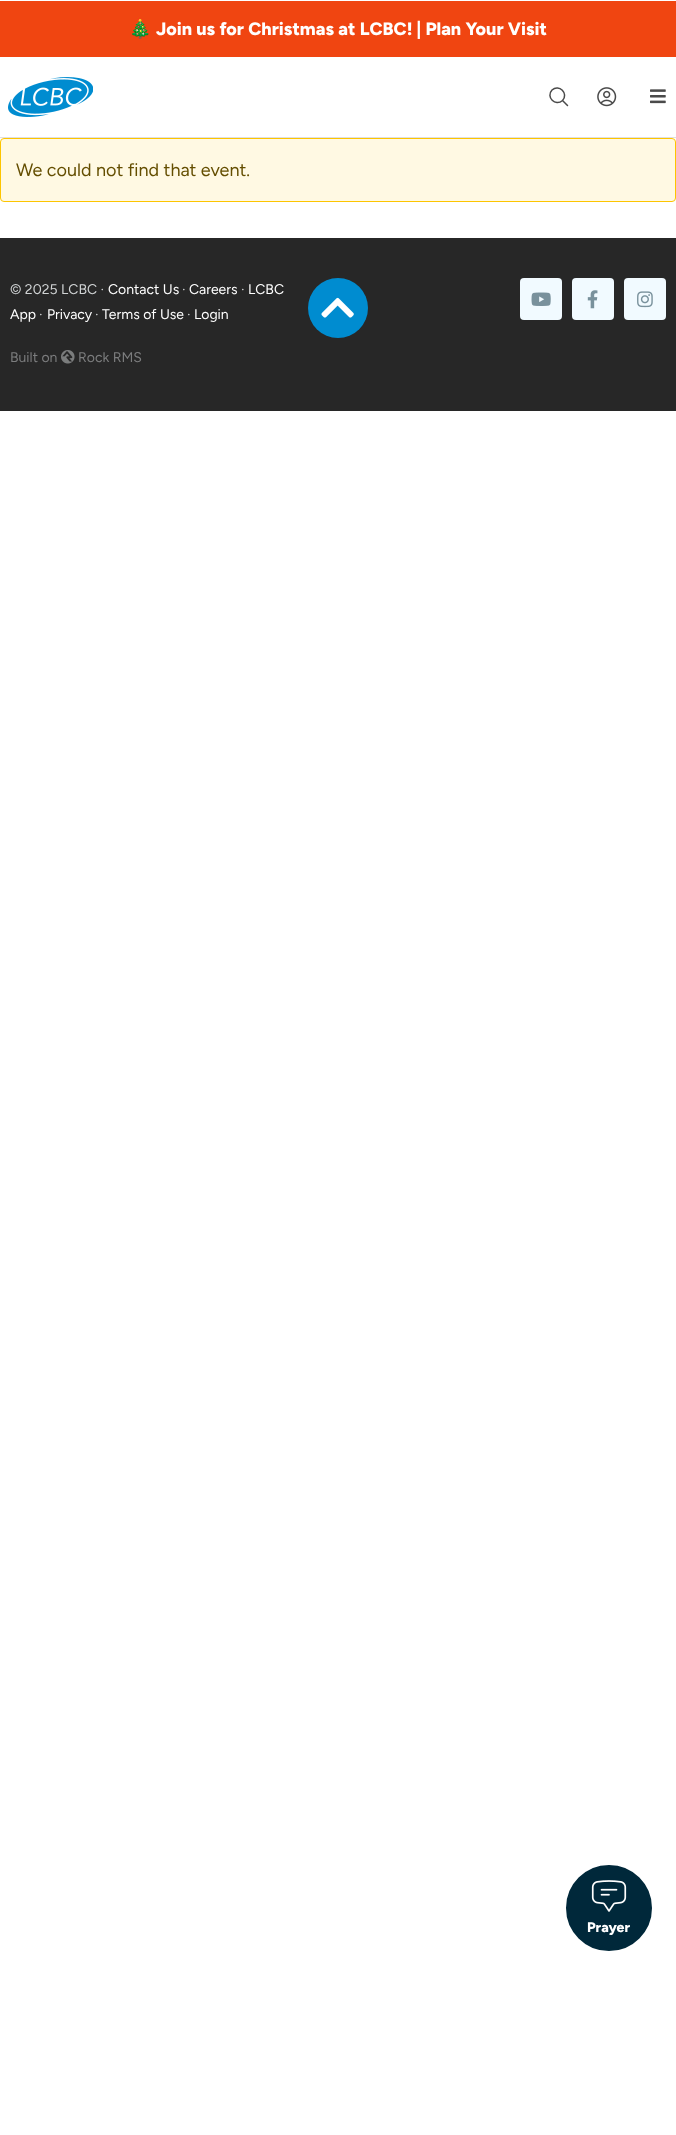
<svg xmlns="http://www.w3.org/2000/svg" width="676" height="2135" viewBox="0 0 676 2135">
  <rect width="100%" height="100%" fill="rgb(255,255,255)"/>
  <rect x="0" y="1" width="676" height="56" fill="rgb(240,69,17)"/>
  <text x="129" y="35" font-family="Noto Color Emoji" font-size="18" font-weight="bold" fill="rgb(255,255,255)">🎄</text>
  <text x="156" y="35" font-family="Figtree" font-size="18" font-weight="800" fill="rgb(255,255,255)">Join us for Christmas at LCBC! | Plan Your Visit</text>
  <rect x="0" y="137" width="676" height="1" fill="rgb(224,224,224)"/>
  <image x="8" y="77" width="85" height="40" href="pic1.png"/>
  <path d="M567.5 105.5L562.5 100.5M562.5 100.5C569 93.5 559 83.5 552 90C545.5 97 555.5 107 562.5 100.5Z" fill="none" stroke="rgb(74,74,74)" stroke-width="1.5" stroke-linecap="round" stroke-linejoin="round"/>
  <image x="597" y="87" width="20" height="20" href="pic2.png"/>
  <image x="650" y="89" width="16" height="15" href="pic3.png"/>
  <rect x="0.5" y="138.5" width="675" height="63" rx="3.5" fill="rgb(255,249,227)" stroke="rgb(253,197,0)"/>
  <text x="16" y="176" font-family="Figtree" font-size="18" fill="rgb(100,78,0)">We could not find that event.</text>
  <rect x="0" y="238" width="676" height="173" fill="rgb(39,39,39)"/>
  <text x="10" y="294" font-family="Figtree" font-size="14" fill="rgb(208,211,212)">© 2025 LCBC ·</text>
  <text x="108" y="294" font-family="Figtree" font-size="14" fill="rgb(255,255,255)">Contact Us</text>
  <text x="182" y="294" font-family="Figtree" font-size="14" fill="rgb(208,211,212)">·</text>
  <text x="189" y="294" font-family="Figtree" font-size="14" fill="rgb(255,255,255)">Careers</text>
  <text x="241" y="294" font-family="Figtree" font-size="14" fill="rgb(208,211,212)">·</text>
  <g font-family="Figtree" font-size="14" fill="rgb(255,255,255)">
    <text x="248" y="294">LCBC</text>
    <text x="10" y="319">App</text>
  </g>
  <text x="39" y="319" font-family="Figtree" font-size="14" fill="rgb(208,211,212)">·</text>
  <text x="47" y="319" font-family="Figtree" font-size="14" fill="rgb(255,255,255)">Privacy</text>
  <text x="95" y="319" font-family="Figtree" font-size="14" fill="rgb(208,211,212)">·</text>
  <text x="102" y="319" font-family="Figtree" font-size="14" fill="rgb(255,255,255)">Terms of Use</text>
  <text x="187" y="319" font-family="Figtree" font-size="14" fill="rgb(208,211,212)">·</text>
  <text x="194" y="319" font-family="Figtree" font-size="14" fill="rgb(255,255,255)">Login</text>
  <text x="10" y="362" font-family="Figtree" font-size="14" fill="rgb(124,125,126)">Built on</text>
  <image x="61" y="350" width="14" height="14" href="pic4.png"/>
  <text x="78" y="362" font-family="Figtree" font-size="14" fill="rgb(124,125,126)">Rock RMS</text>
  <circle cx="338" cy="308" r="30" fill="rgb(0,140,208)"/>
  <image x="321" y="297" width="33" height="21" href="pic5.png"/>
  <rect x="520" y="278" width="42" height="42" rx="4" fill="rgb(241,250,255)"/>
  <image x="531" y="292" width="20" height="14" href="pic6.png"/>
  <rect x="572" y="278" width="42" height="42" rx="4" fill="rgb(241,250,255)"/>
  <image x="587" y="290" width="11" height="19" href="pic7.png"/>
  <rect x="624" y="278" width="42" height="42" rx="4" fill="rgb(241,250,255)"/>
  <image x="637" y="291" width="16" height="17" href="pic8.png"/>
  <circle cx="609" cy="1908" r="45" fill="rgb(0,40,58)" stroke="rgb(255,255,255)" stroke-width="4"/>
  <image x="591" y="1880" width="36" height="32" href="pic9.png"/>
  <text x="587" y="1932" font-family="Figtree" font-size="14" font-weight="800" fill="rgb(255,255,255)">Prayer</text>
</svg>
